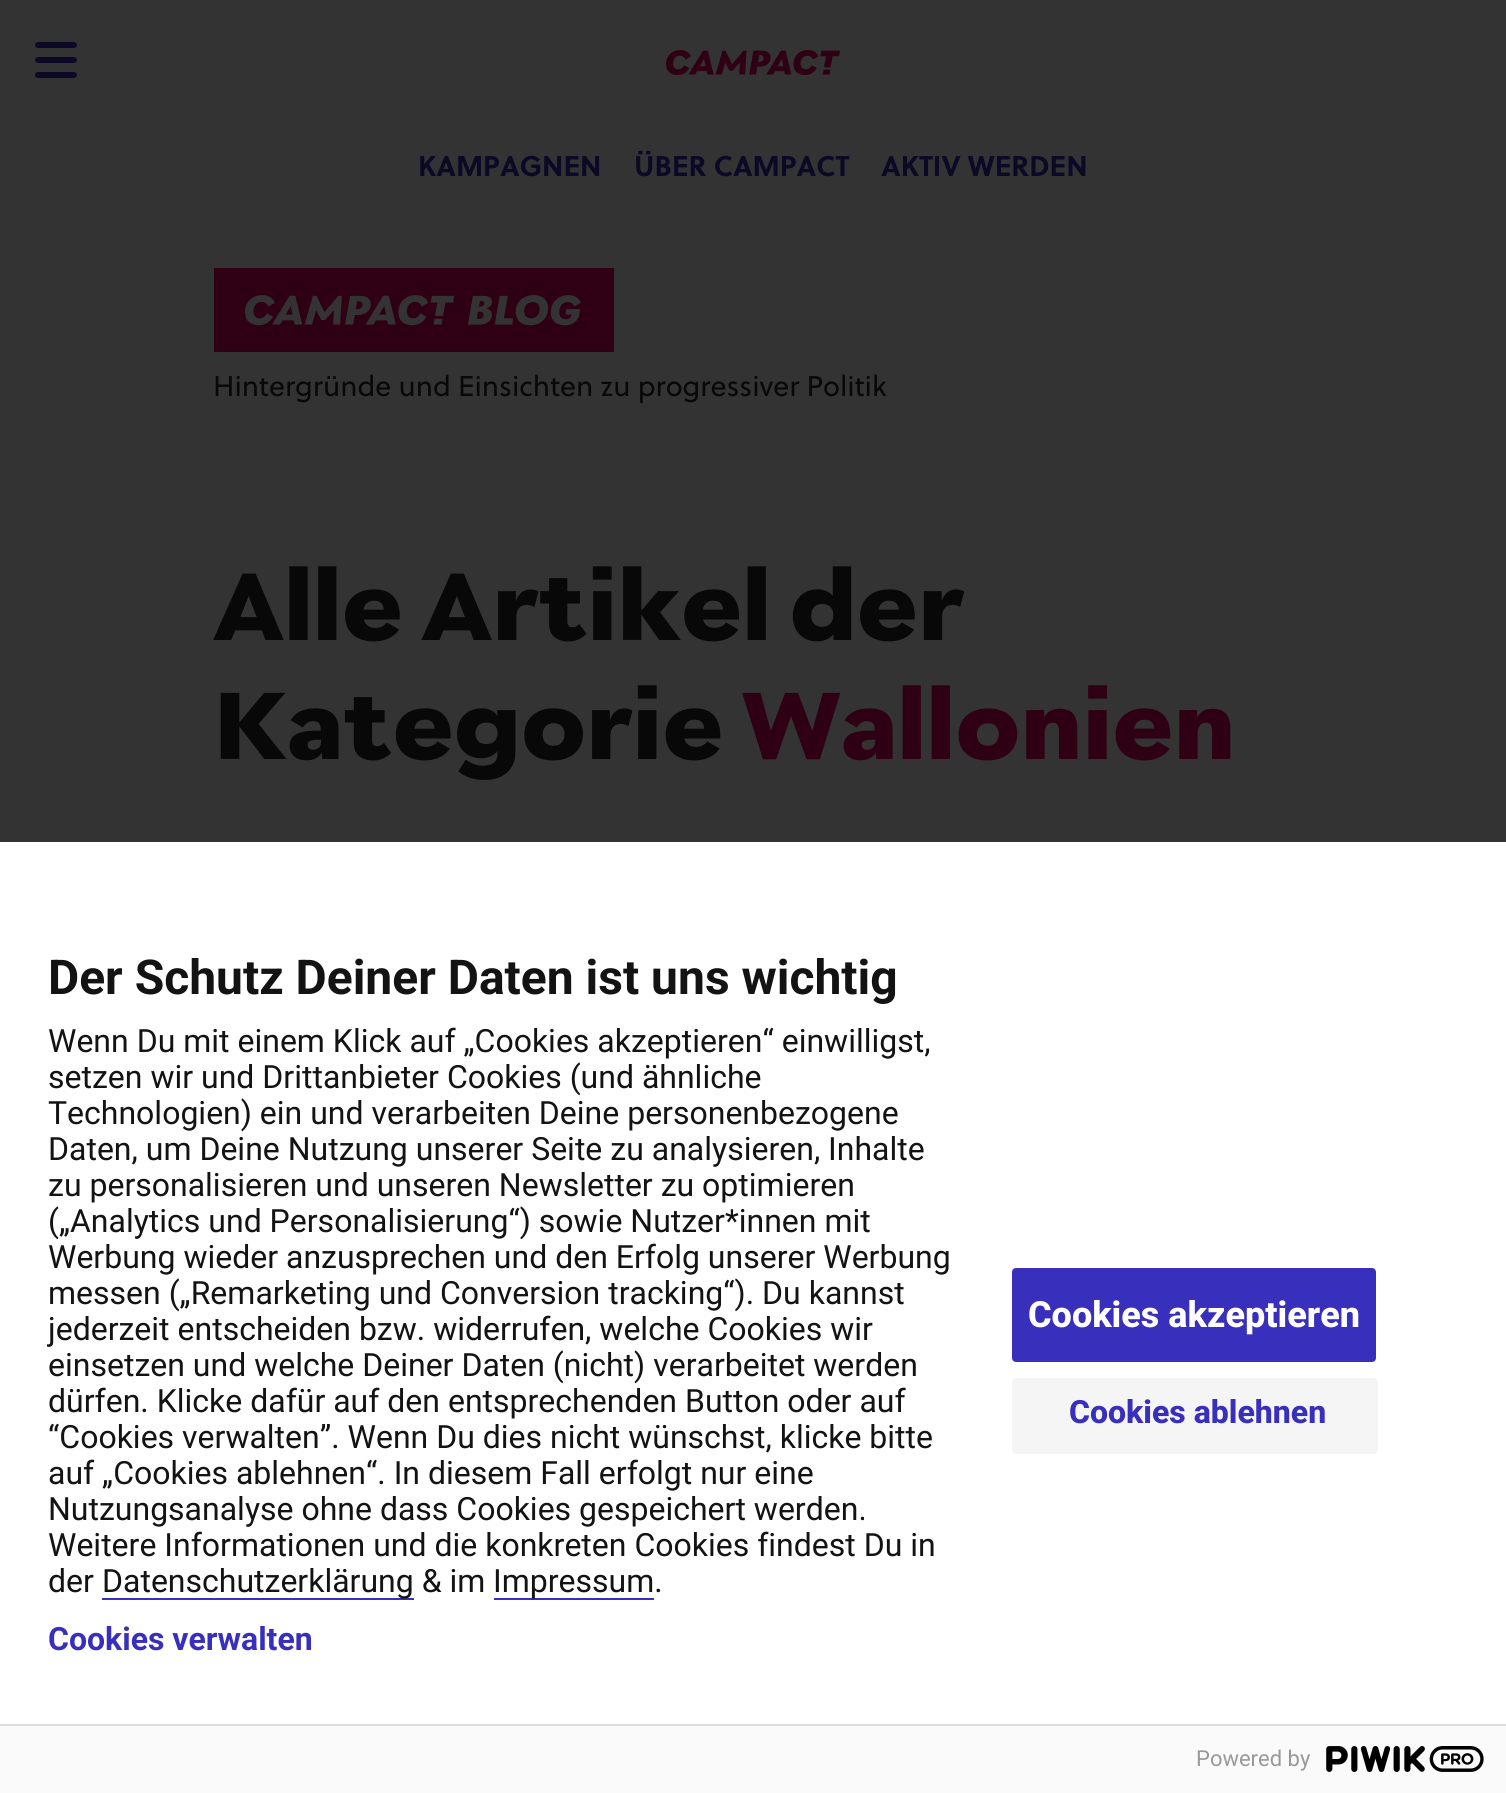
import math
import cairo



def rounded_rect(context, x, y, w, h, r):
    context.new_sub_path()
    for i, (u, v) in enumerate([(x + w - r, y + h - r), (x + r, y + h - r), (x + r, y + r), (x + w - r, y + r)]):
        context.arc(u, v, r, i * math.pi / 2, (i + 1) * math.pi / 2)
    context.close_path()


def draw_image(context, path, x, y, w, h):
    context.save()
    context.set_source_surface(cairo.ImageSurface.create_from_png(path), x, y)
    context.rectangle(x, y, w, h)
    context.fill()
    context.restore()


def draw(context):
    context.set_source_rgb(51 / 255, 51 / 255, 51 / 255)
    context.paint()
    draw_image(context, "images/1.png", 35, 42, 42, 36)
    draw_image(context, "images/2.png", 666, 50, 174, 25)
    draw_image(context, "images/3.png", 214, 268, 400, 84)
    context.set_source_rgb(1, 1, 1)
    context.rectangle(0, 842, 1506, 882)
    context.fill()
    context.set_source_rgb(57 / 255, 47 / 255, 189 / 255)
    context.rectangle(102, 1598, 312, 2)
    context.fill()
    context.rectangle(494, 1598, 160, 2)
    context.fill()
    rounded_rect(context, 1013, 1269, 362, 92, 3)
    context.fill_preserve()
    context.stroke()
    context.set_source_rgb(245 / 255, 245 / 255, 245 / 255)
    rounded_rect(context, 1012, 1378, 366, 76, 4)
    context.fill()
    context.set_source_rgb(250 / 255, 250 / 255, 250 / 255)
    context.rectangle(0, 1726, 1506, 67)
    context.fill()
    context.set_source_rgb(221 / 255, 221 / 255, 221 / 255)
    context.rectangle(0, 1724, 1506, 2)
    context.fill()
    draw_image(context, "images/4.png", 1326, 1746, 158, 26)
    context.select_font_face("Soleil", cairo.FontSlant.NORMAL, cairo.FontWeight.BOLD)
    context.set_font_size(28.5)
    context.set_source_rgb(11 / 255, 9 / 255, 38 / 255)
    context.move_to(418, 176)
    context.show_text("KAMPAGNEN")
    context.move_to(634, 176)
    context.show_text("ÜBER CAMPACT")
    context.move_to(881, 176)
    context.show_text("AKTIV WERDEN")
    context.select_font_face("Soleil")
    context.set_source_rgb(8 / 255, 8 / 255, 8 / 255)
    context.move_to(213, 396)
    context.show_text("Hintergründe und Einsichten zu progressiver Politik")
    context.select_font_face("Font", cairo.FontSlant.NORMAL, cairo.FontWeight.BOLD)
    context.set_font_size(94.5)
    context.move_to(213, 640)
    context.show_text("Alle Artikel der")
    context.move_to(213, 759)
    context.show_text("Kategorie")
    context.set_source_rgb(47 / 255, 0, 19 / 255)
    context.move_to(742, 759)
    context.show_text("Wallonien")
    context.select_font_face("Roboto", cairo.FontSlant.NORMAL, cairo.FontWeight.BOLD)
    context.set_font_size(48)
    context.set_source_rgb(19 / 255, 19 / 255, 19 / 255)
    context.move_to(48, 994)
    context.show_text("Der Schutz Deiner Daten ist uns wichtig")
    context.select_font_face("Roboto")
    context.set_font_size(32)
    context.move_to(48, 1052)
    context.show_text("Wenn Du mit einem Klick auf „Cookies akzeptieren“ einwilligst,")
    context.move_to(48, 1088)
    context.show_text("setzen wir und Drittanbieter Cookies (und ähnliche")
    context.move_to(48, 1124)
    context.show_text("Technologien) ein und verarbeiten Deine personenbezogene")
    context.move_to(48, 1160)
    context.show_text("Daten, um Deine Nutzung unserer Seite zu analysieren, Inhalte")
    context.move_to(48, 1196)
    context.show_text("zu personalisieren und unseren Newsletter zu optimieren")
    context.move_to(48, 1232)
    context.show_text("(„Analytics und Personalisierung“) sowie Nutzer*innen mit")
    context.move_to(48, 1268)
    context.show_text("Werbung wieder anzusprechen und den Erfolg unserer Werbung")
    context.move_to(48, 1304)
    context.show_text("messen („Remarketing und Conversion tracking“). Du kannst")
    context.move_to(48, 1340)
    context.show_text("jederzeit entscheiden bzw. widerrufen, welche Cookies wir")
    context.move_to(48, 1376)
    context.show_text("einsetzen und welche Deiner Daten (nicht) verarbeitet werden")
    context.move_to(48, 1412)
    context.show_text("dürfen. Klicke dafür auf den entsprechenden Button oder auf")
    context.move_to(48, 1448)
    context.show_text("“Cookies verwalten”. Wenn Du dies nicht wünschst, klicke bitte")
    context.move_to(48, 1484)
    context.show_text("auf „Cookies ablehnen“. In diesem Fall erfolgt nur eine")
    context.move_to(48, 1520)
    context.show_text("Nutzungsanalyse ohne dass Cookies gespeichert werden.")
    context.move_to(48, 1556)
    context.show_text("Weitere Informationen und die konkreten Cookies findest Du in")
    context.move_to(48, 1592)
    context.show_text("der")
    context.move_to(102, 1592)
    context.show_text("Datenschutzerklärung & im")
    context.move_to(493, 1592)
    context.show_text("Impressum.")
    context.select_font_face("Roboto ExtraBold")
    context.set_font_size(36)
    context.set_source_rgb(1, 1, 1)
    context.move_to(1028, 1327)
    context.show_text("Cookies akzeptieren")
    context.set_font_size(32)
    context.set_source_rgb(57 / 255, 47 / 255, 189 / 255)
    context.move_to(1069, 1423)
    context.show_text("Cookies ablehnen")
    context.select_font_face("Roboto", cairo.FontSlant.NORMAL, cairo.FontWeight.BOLD)
    context.move_to(48, 1650)
    context.show_text("Cookies verwalten")
    context.select_font_face("Roboto")
    context.set_font_size(22)
    context.set_source_rgb(153 / 255, 153 / 255, 153 / 255)
    context.move_to(1196, 1766)
    context.show_text("Powered by")


surface = cairo.ImageSurface(cairo.Format.RGB24, 1506, 1793)
context = cairo.Context(surface)
options = cairo.FontOptions()
options.set_hint_metrics(cairo.HintMetrics.OFF)
options.set_hint_style(cairo.HintStyle.NONE)
context.set_font_options(options)
context.set_miter_limit(4)
draw(context)
surface.write_to_png("out.png")
